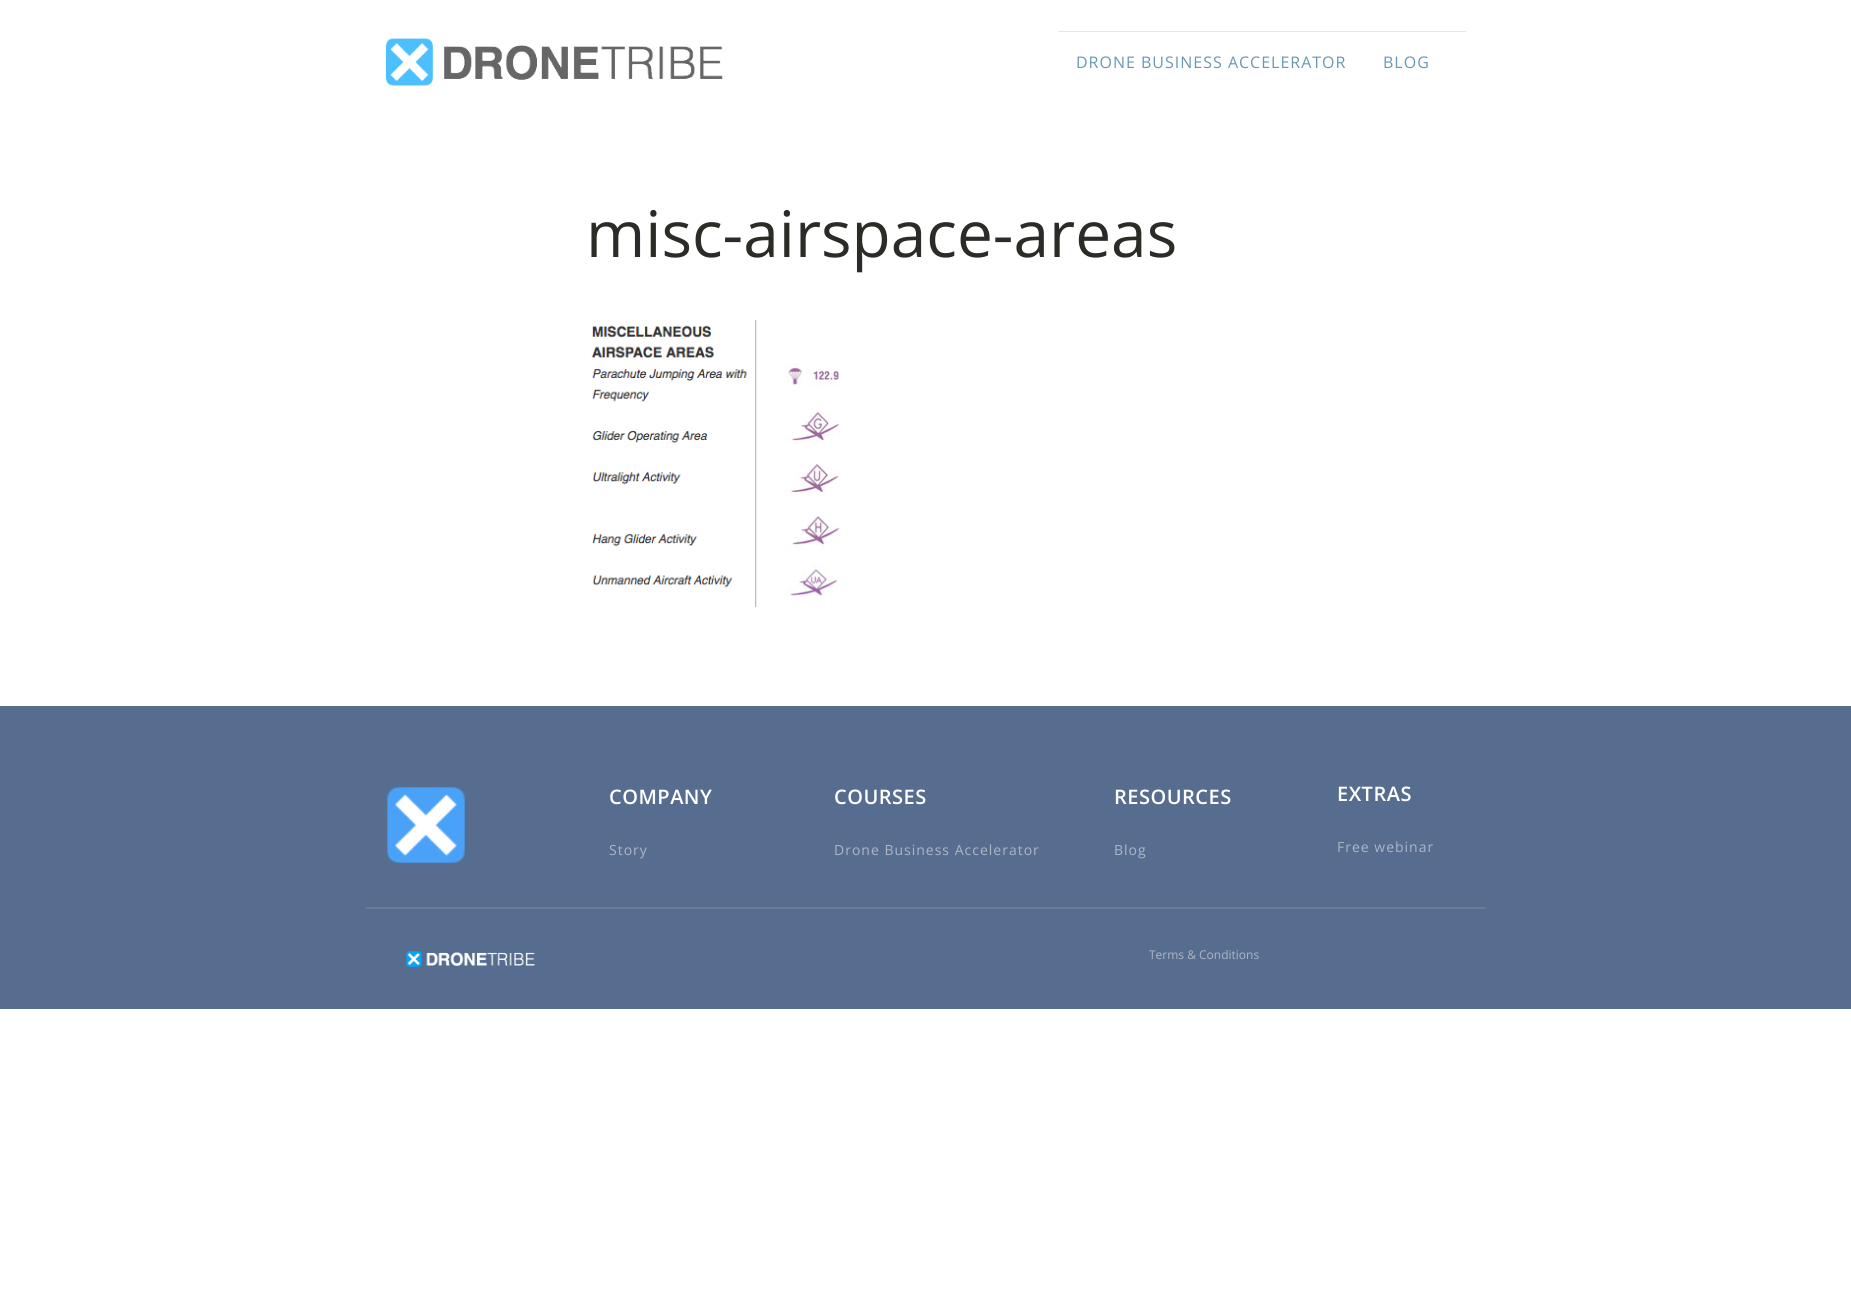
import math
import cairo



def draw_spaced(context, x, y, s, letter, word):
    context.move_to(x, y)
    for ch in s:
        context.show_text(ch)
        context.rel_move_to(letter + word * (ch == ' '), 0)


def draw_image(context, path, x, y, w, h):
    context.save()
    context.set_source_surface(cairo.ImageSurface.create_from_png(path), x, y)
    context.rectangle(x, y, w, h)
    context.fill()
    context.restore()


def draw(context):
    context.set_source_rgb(1, 1, 1)
    context.paint()
    draw_image(context, "images/1.png", 386, 38, 337, 48)
    context.set_source_rgb(230 / 255, 230 / 255, 230 / 255)
    context.rectangle(1058, 31, 408, 1)
    context.fill()
    draw_image(context, "images/2.png", 591, 320, 250, 287)
    context.set_source_rgb(86 / 255, 109 / 255, 143 / 255)
    context.rectangle(0, 706, 1851, 303)
    context.fill()
    context.set_source_rgb(103 / 255, 124 / 255, 154 / 255)
    context.rectangle(366, 907, 1120, 2)
    context.fill()
    draw_image(context, "images/3.png", 387, 787, 78, 76)
    draw_image(context, "images/4.png", 406, 951, 129, 16)
    context.select_font_face("Open Sans")
    context.set_font_size(16)
    context.set_source_rgb(103 / 255, 153 / 255, 178 / 255)
    draw_spaced(context, 1076, 68, "DRONE BUSINESS ACCELERATOR", 1, 0)
    draw_spaced(context, 1383, 68, "BLOG", 1, 0)
    context.set_font_size(64)
    context.set_source_rgb(43 / 255, 44 / 255, 40 / 255)
    context.move_to(586, 257)
    context.show_text("misc-airspace-areas")
    context.select_font_face("Open Sans SemiBold")
    context.set_font_size(20)
    context.set_source_rgb(1, 1, 1)
    draw_spaced(context, 609, 804, "COMPANY", 0.5, 0)
    context.select_font_face("Open Sans")
    context.set_font_size(14)
    context.set_source_rgb(171 / 255, 182 / 255, 199 / 255)
    draw_spaced(context, 609, 855, "Story", 1, 0)
    context.select_font_face("Open Sans SemiBold")
    context.set_font_size(20)
    context.set_source_rgb(1, 1, 1)
    draw_spaced(context, 834, 804, "COURSES", 0.5, 0)
    context.select_font_face("Open Sans")
    context.set_font_size(14)
    context.set_source_rgb(171 / 255, 182 / 255, 199 / 255)
    draw_spaced(context, 834, 855, "Drone Business Accelerator", 1, 0)
    context.select_font_face("Open Sans SemiBold")
    context.set_font_size(20)
    context.set_source_rgb(1, 1, 1)
    draw_spaced(context, 1114, 804, "RESOURCES", 0.5, 0)
    context.select_font_face("Open Sans")
    context.set_font_size(14)
    context.set_source_rgb(171 / 255, 182 / 255, 199 / 255)
    draw_spaced(context, 1114, 855, "Blog", 1, 0)
    context.select_font_face("Open Sans SemiBold")
    context.set_font_size(20)
    context.set_source_rgb(1, 1, 1)
    draw_spaced(context, 1337, 801, "EXTRAS", 0.5, 0)
    context.select_font_face("Open Sans")
    context.set_font_size(14)
    context.set_source_rgb(171 / 255, 182 / 255, 199 / 255)
    draw_spaced(context, 1337, 852, "Free webinar", 1, 0)
    context.set_font_size(12)
    context.move_to(1149, 959)
    context.show_text("Terms & Conditions")


surface = cairo.ImageSurface(cairo.Format.RGB24, 1851, 1290)
context = cairo.Context(surface)
options = cairo.FontOptions()
options.set_hint_metrics(cairo.HintMetrics.OFF)
options.set_hint_style(cairo.HintStyle.NONE)
context.set_font_options(options)
context.set_miter_limit(4)
draw(context)
surface.write_to_png("out.png")
